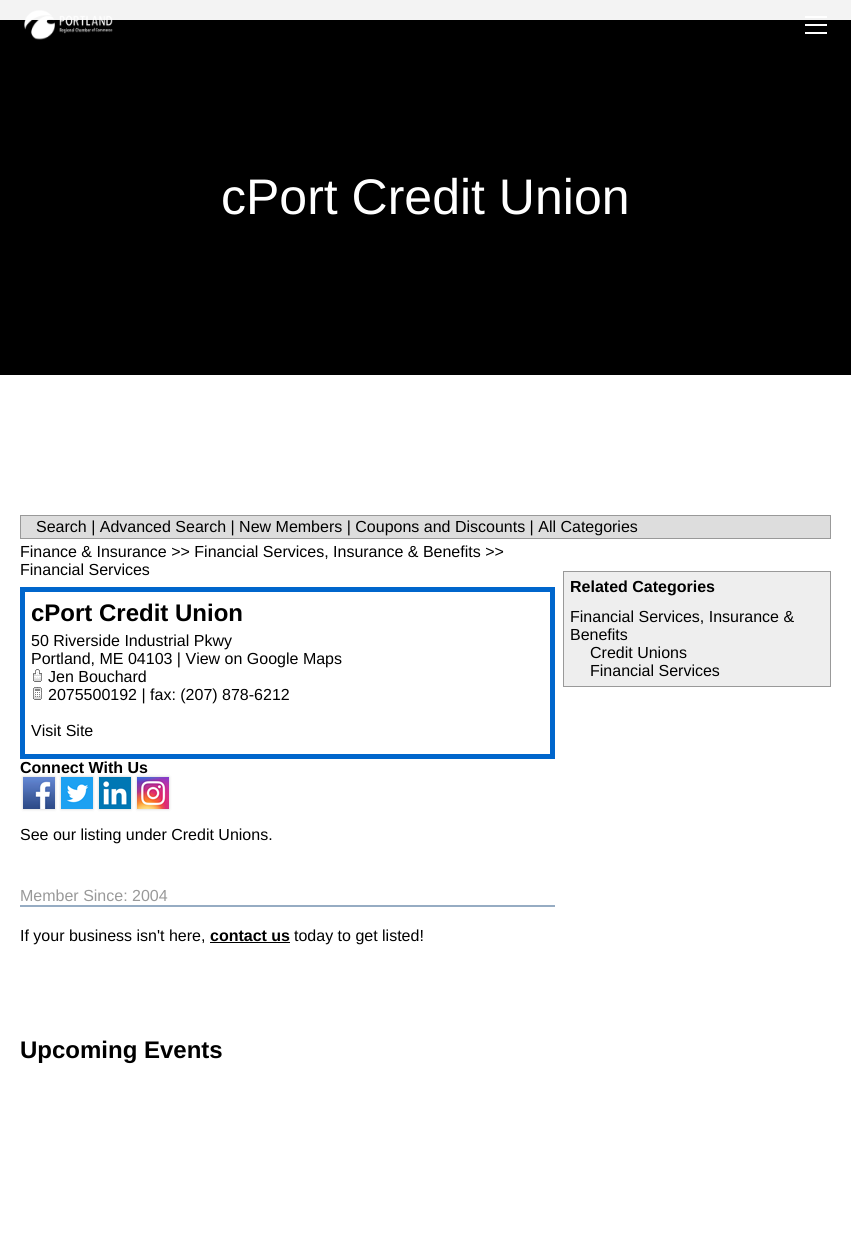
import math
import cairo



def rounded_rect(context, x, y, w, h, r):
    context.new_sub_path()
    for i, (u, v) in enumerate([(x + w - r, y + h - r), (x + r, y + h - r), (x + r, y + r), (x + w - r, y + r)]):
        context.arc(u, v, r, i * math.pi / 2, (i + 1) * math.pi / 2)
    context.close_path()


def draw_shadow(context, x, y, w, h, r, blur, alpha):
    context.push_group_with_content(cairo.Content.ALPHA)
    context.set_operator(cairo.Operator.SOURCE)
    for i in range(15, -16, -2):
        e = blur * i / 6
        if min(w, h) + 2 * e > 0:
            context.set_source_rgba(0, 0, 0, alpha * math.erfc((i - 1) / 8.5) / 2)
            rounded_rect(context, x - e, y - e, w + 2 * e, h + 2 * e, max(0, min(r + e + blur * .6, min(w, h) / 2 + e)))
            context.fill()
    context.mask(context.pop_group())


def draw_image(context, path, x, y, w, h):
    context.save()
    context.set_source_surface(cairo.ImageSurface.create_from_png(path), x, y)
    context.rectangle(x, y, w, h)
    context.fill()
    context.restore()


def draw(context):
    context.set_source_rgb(243 / 255, 243 / 255, 243 / 255)
    context.paint()
    context.set_source_rgb(0, 0, 0)
    context.rectangle(0, 20, 851, 355)
    context.fill()
    draw_image(context, "images/1.png", 24, 10, 89, 30)
    context.set_source_rgb(1, 1, 1)
    context.rectangle(805, 24, 22, 2)
    context.fill()
    context.rectangle(805, 16, 22, 2)
    context.fill()
    context.rectangle(805, 32, 22, 2)
    context.fill()
    context.rectangle(0, 375, 851, 866)
    context.fill()
    context.set_source_rgb(221 / 255, 221 / 255, 221 / 255)
    context.rectangle(20.5, 515.5, 810, 23)
    context.fill_preserve()
    context.set_source_rgb(153 / 255, 153 / 255, 153 / 255)
    context.set_line_width(1)
    context.stroke()
    context.set_source_rgb(0, 102 / 255, 204 / 255)
    context.rectangle(20, 587, 535, 172)
    context.fill()
    context.set_source_rgb(1, 1, 1)
    context.rectangle(25, 592, 525, 162)
    context.fill()
    draw_image(context, "images/2.png", 33, 669, 9, 13)
    draw_image(context, "images/3.png", 33, 687, 9, 13)
    context.set_source_rgb(0, 0, 0)
    draw_shadow(context, 23, 777, 32, 32, 0, 1.5, 0.2)
    draw_shadow(context, 61, 777, 32, 32, 0, 1.5, 0.2)
    draw_shadow(context, 99, 777, 32, 32, 0, 1.5, 0.2)
    draw_shadow(context, 137, 777, 32, 32, 0, 1.5, 0.2)
    draw_image(context, "images/4.png", 23, 777, 32, 32)
    draw_image(context, "images/5.png", 61, 777, 32, 32)
    draw_image(context, "images/6.png", 99, 777, 32, 32)
    draw_image(context, "images/7.png", 137, 777, 32, 32)
    context.set_source_rgb(150 / 255, 172 / 255, 195 / 255)
    context.rectangle(20, 905, 535, 2)
    context.fill()
    context.set_source_rgb(0, 0, 0)
    context.rectangle(210, 942, 80, 1)
    context.fill()
    context.set_source_rgb(238 / 255, 238 / 255, 238 / 255)
    context.rectangle(563.5, 571.5, 267, 115)
    context.fill_preserve()
    context.set_source_rgb(153 / 255, 153 / 255, 153 / 255)
    context.stroke()
    context.select_font_face("Liberation Sans")
    context.set_font_size(50)
    context.set_source_rgb(1, 1, 1)
    context.move_to(221, 214)
    context.show_text("cPort Credit Union")
    context.set_font_size(16)
    context.set_source_rgb(0, 0, 0)
    context.move_to(36, 532)
    context.show_text("Search | Advanced Search | New Members | Coupons and Discounts | All Categories")
    context.move_to(20, 557)
    context.show_text("Finance & Insurance >> Financial Services, Insurance & Benefits >>")
    context.move_to(20, 575)
    context.show_text("Financial Services")
    context.select_font_face("Liberation Sans", cairo.FontSlant.NORMAL, cairo.FontWeight.BOLD)
    context.set_font_size(24)
    context.move_to(31, 621)
    context.show_text("cPort Credit Union")
    context.select_font_face("Liberation Sans")
    context.set_font_size(16)
    context.move_to(31, 646)
    context.show_text("50 Riverside Industrial Pkwy")
    context.move_to(31, 664)
    context.show_text("Portland, ME 04103 | View on Google Maps")
    context.move_to(48, 682)
    context.show_text("Jen Bouchard")
    context.move_to(48, 700)
    context.show_text("2075500192 | fax: (207) 878-6212")
    context.move_to(31, 736)
    context.show_text("Visit Site")
    context.select_font_face("Liberation Sans", cairo.FontSlant.NORMAL, cairo.FontWeight.BOLD)
    context.move_to(20, 773)
    context.show_text("Connect With Us")
    context.select_font_face("Liberation Sans")
    context.move_to(20, 840)
    context.show_text("See our listing under Credit Unions.")
    context.set_source_rgb(153 / 255, 153 / 255, 153 / 255)
    context.move_to(20, 901)
    context.show_text("Member Since: 2004")
    context.set_source_rgb(0, 0, 0)
    context.move_to(20, 941)
    context.show_text("If your business isn't here,")
    context.select_font_face("Liberation Sans", cairo.FontSlant.NORMAL, cairo.FontWeight.BOLD)
    context.move_to(210, 941)
    context.show_text("contact us")
    context.select_font_face("Liberation Sans")
    context.move_to(294, 941)
    context.show_text("today to get listed!")
    context.select_font_face("Liberation Sans", cairo.FontSlant.NORMAL, cairo.FontWeight.BOLD)
    context.move_to(570, 592)
    context.show_text("Related Categories")
    context.select_font_face("Liberation Sans")
    context.move_to(570, 622)
    context.show_text("Financial Services, Insurance &")
    context.move_to(570, 640)
    context.show_text("Benefits")
    context.move_to(590, 658)
    context.show_text("Credit Unions")
    context.move_to(590, 676)
    context.show_text("Financial Services")
    context.select_font_face("Liberation Sans", cairo.FontSlant.NORMAL, cairo.FontWeight.BOLD)
    context.set_font_size(24)
    context.move_to(20, 1058)
    context.show_text("Upcoming Events")


surface = cairo.ImageSurface(cairo.Format.RGB24, 851, 1241)
context = cairo.Context(surface)
options = cairo.FontOptions()
options.set_hint_metrics(cairo.HintMetrics.OFF)
options.set_hint_style(cairo.HintStyle.NONE)
context.set_font_options(options)
context.set_miter_limit(4)
draw(context)
surface.write_to_png("out.png")
